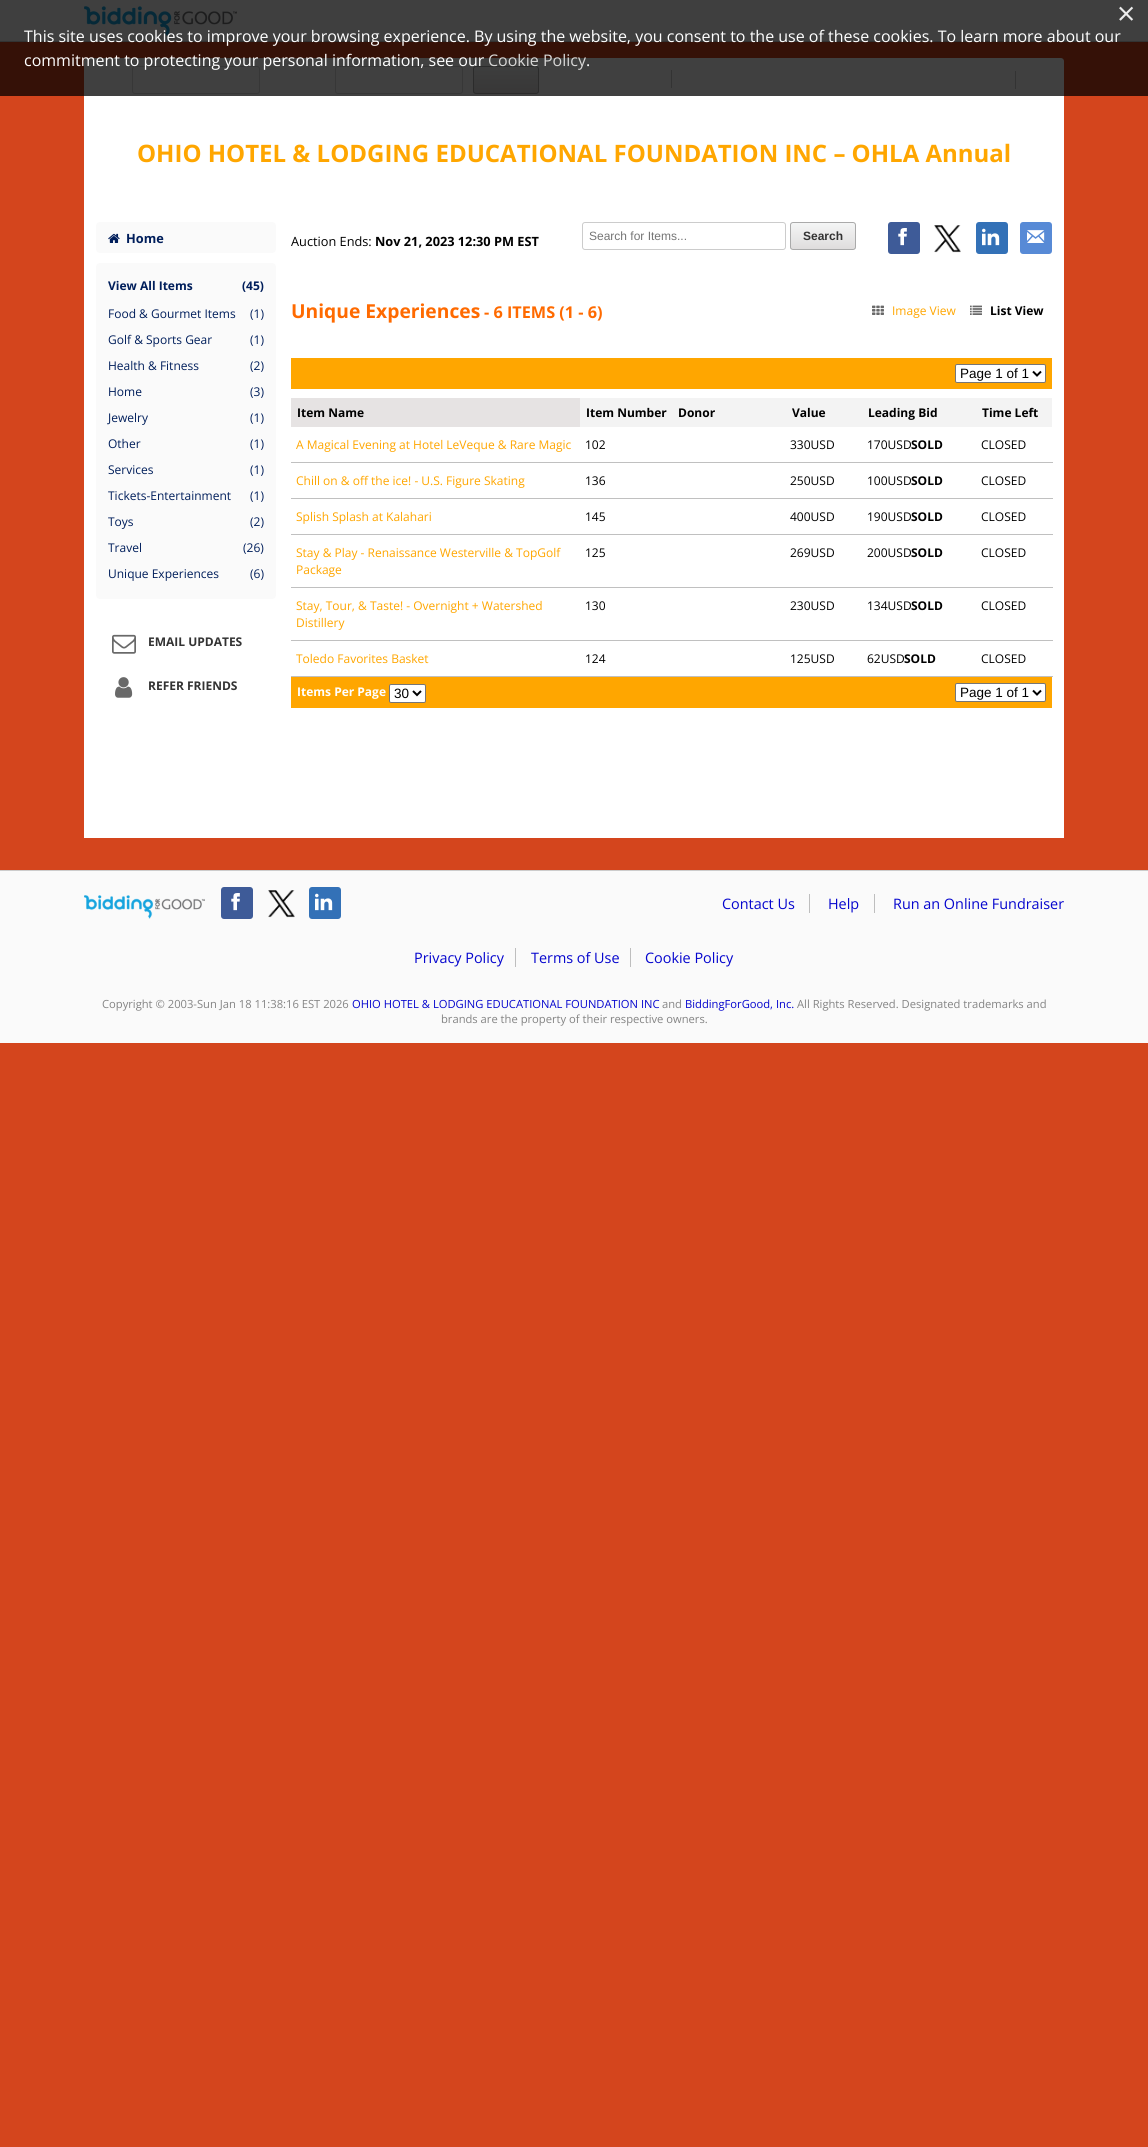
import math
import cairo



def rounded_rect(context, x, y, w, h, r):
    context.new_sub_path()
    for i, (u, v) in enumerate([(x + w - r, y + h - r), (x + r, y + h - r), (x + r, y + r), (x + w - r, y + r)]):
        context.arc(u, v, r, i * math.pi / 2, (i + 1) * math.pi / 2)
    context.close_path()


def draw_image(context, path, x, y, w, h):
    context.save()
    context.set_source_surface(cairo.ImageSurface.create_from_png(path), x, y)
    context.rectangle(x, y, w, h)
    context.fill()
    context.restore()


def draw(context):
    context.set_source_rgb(212 / 255, 69 / 255, 29 / 255)
    context.paint()
    context.set_source_rgb(250 / 255, 250 / 255, 250 / 255)
    context.rectangle(0, 0, 1148, 41)
    context.fill()
    context.set_source_rgb(204 / 255, 204 / 255, 204 / 255)
    context.rectangle(0, 41, 1148, 1)
    context.fill()
    draw_image(context, "images/1.png", 84, 6, 153, 30)
    context.set_source_rgb(1, 1, 1)
    context.new_path()
    context.move_to(87, 58)
    context.line_to(1061, 58)
    context.curve_to(1062.5, 58, 1064, 59.5, 1064, 61)
    context.line_to(1064, 102)
    context.line_to(84, 102)
    context.line_to(84, 61)
    context.curve_to(84, 59.5, 85.5, 58, 87, 58)
    context.close_path()
    context.fill()
    rounded_rect(context, 132.5, 66.5, 127, 27, 2.5)
    context.set_source_rgb(221 / 255, 221 / 255, 221 / 255)
    context.set_line_width(1)
    context.stroke()
    rounded_rect(context, 335.5, 66.5, 127, 27, 2.5)
    context.stroke()
    context.save()
    rounded_rect(context, 473, 66, 66, 28, 3)
    context.clip()
    gradient = cairo.LinearGradient(506, 67, 506, 93)
    gradient.add_color_stop_rgba(0, 244 / 255, 245 / 255, 245 / 255, 1)
    gradient.add_color_stop_rgba(1, 223 / 255, 221 / 255, 221 / 255, 1)
    context.set_source(gradient)
    context.rectangle(473, 67, 66, 26)
    context.fill()
    context.restore()
    rounded_rect(context, 473.5, 66.5, 65, 27, 2.5)
    context.set_source_rgb(170 / 255, 170 / 255, 170 / 255)
    context.stroke()
    context.set_source_rgb(204 / 255, 204 / 255, 204 / 255)
    context.rectangle(671, 70, 1, 18)
    context.fill()
    context.rectangle(1015, 71, 1, 18)
    context.fill()
    context.set_source_rgba(0, 0, 0, 0.75)
    context.rectangle(0, 0, 1148, 96)
    context.fill()
    context.set_source_rgb(1, 1, 1)
    context.rectangle(84, 102, 980, 736)
    context.fill()
    context.set_source_rgb(250 / 255, 250 / 255, 250 / 255)
    rounded_rect(context, 96, 222, 180, 31, 4)
    context.fill()
    draw_image(context, "images/2.png", 108, 233, 12, 10)
    rounded_rect(context, 96, 263, 180, 336, 4)
    context.fill()
    draw_image(context, "images/3.png", 112, 634, 24, 20)
    draw_image(context, "images/4.png", 115, 677, 18, 21)
    rounded_rect(context, 582.5, 222.5, 203, 27, 2.5)
    context.set_source_rgb(204 / 255, 204 / 255, 204 / 255)
    context.stroke()
    context.save()
    rounded_rect(context, 790, 222, 66, 28, 3)
    context.clip()
    gradient = cairo.LinearGradient(823, 223, 823, 249)
    gradient.add_color_stop_rgba(0, 244 / 255, 245 / 255, 245 / 255, 1)
    gradient.add_color_stop_rgba(1, 223 / 255, 221 / 255, 221 / 255, 1)
    context.set_source(gradient)
    context.rectangle(790, 223, 66, 26)
    context.fill()
    context.restore()
    rounded_rect(context, 790.5, 222.5, 65, 27, 2.5)
    context.set_source_rgb(170 / 255, 170 / 255, 170 / 255)
    context.stroke()
    context.set_source_rgb(62 / 255, 91 / 255, 152 / 255)
    rounded_rect(context, 888, 222, 32, 32, 3)
    context.fill()
    draw_image(context, "images/5.png", 898, 228, 9, 18)
    draw_image(context, "images/6.png", 934, 225, 27, 28)
    context.set_source_rgb(51 / 255, 113 / 255, 183 / 255)
    rounded_rect(context, 976, 222, 32, 32, 3)
    context.fill()
    draw_image(context, "images/7.png", 982, 228, 18, 18)
    context.set_source_rgb(87 / 255, 138 / 255, 214 / 255)
    rounded_rect(context, 1020, 222, 32, 32, 3)
    context.fill()
    draw_image(context, "images/8.png", 1027, 230, 18, 13)
    draw_image(context, "images/9.png", 872, 305, 12, 10)
    draw_image(context, "images/10.png", 970, 305, 12, 10)
    context.set_source_rgb(1, 166 / 255, 0)
    context.rectangle(291, 358, 761, 31)
    context.fill()
    context.set_source_rgb(1, 1, 1)
    rounded_rect(context, 955.5, 364.5, 90, 18, 1.5)
    context.fill_preserve()
    context.set_source_rgb(118 / 255, 118 / 255, 118 / 255)
    context.stroke()
    context.new_path()
    context.move_to(1033, 371.5)
    context.line_to(1037, 375.5)
    context.line_to(1041, 371.5)
    context.set_source_rgb(0, 0, 0)
    context.set_line_width(2)
    context.stroke()
    context.set_source_rgb(243 / 255, 243 / 255, 243 / 255)
    context.rectangle(580, 398, 472, 29)
    context.fill()
    context.set_source_rgb(230 / 255, 227 / 255, 227 / 255)
    context.rectangle(291, 398, 289, 29)
    context.fill()
    context.set_source_rgb(192 / 255, 192 / 255, 192 / 255)
    context.rectangle(291, 462, 762, 1)
    context.fill()
    context.rectangle(291, 498, 762, 1)
    context.fill()
    context.rectangle(291, 534, 762, 1)
    context.fill()
    context.rectangle(291, 587, 762, 1)
    context.fill()
    context.rectangle(291, 640, 762, 1)
    context.fill()
    context.rectangle(291, 676, 762, 1)
    context.fill()
    context.set_source_rgb(1, 166 / 255, 0)
    context.rectangle(291, 677, 761, 31)
    context.fill()
    context.set_source_rgb(1, 1, 1)
    rounded_rect(context, 389.5, 684.5, 36, 18, 1.5)
    context.fill_preserve()
    context.set_source_rgb(118 / 255, 118 / 255, 118 / 255)
    context.set_line_width(1)
    context.stroke()
    context.new_path()
    context.move_to(413, 691)
    context.line_to(417, 695)
    context.line_to(421, 691)
    context.set_source_rgb(0, 0, 0)
    context.set_line_width(2)
    context.stroke()
    context.set_source_rgb(1, 1, 1)
    rounded_rect(context, 955.5, 683.5, 90, 18, 1.5)
    context.fill_preserve()
    context.set_source_rgb(118 / 255, 118 / 255, 118 / 255)
    context.set_line_width(1)
    context.stroke()
    context.new_path()
    context.move_to(1033, 690.5)
    context.line_to(1037, 694.5)
    context.line_to(1041, 690.5)
    context.set_source_rgb(0, 0, 0)
    context.set_line_width(2)
    context.stroke()
    context.set_source_rgb(250 / 255, 250 / 255, 250 / 255)
    context.rectangle(0, 871, 1148, 172)
    context.fill()
    context.set_source_rgb(204 / 255, 204 / 255, 204 / 255)
    context.rectangle(0, 870, 1148, 1)
    context.fill()
    draw_image(context, "images/11.png", 84, 895, 121, 24)
    context.set_source_rgb(62 / 255, 91 / 255, 152 / 255)
    rounded_rect(context, 221, 887, 32, 32, 3)
    context.fill()
    draw_image(context, "images/5.png", 231, 893, 9, 18)
    draw_image(context, "images/12.png", 268, 890, 27, 28)
    context.set_source_rgb(51 / 255, 113 / 255, 183 / 255)
    rounded_rect(context, 309, 887, 32, 32, 3)
    context.fill()
    draw_image(context, "images/7.png", 315, 893, 18, 18)
    context.set_source_rgb(190 / 255, 190 / 255, 190 / 255)
    context.rectangle(809, 894, 1, 19)
    context.fill()
    context.rectangle(874, 894, 1, 19)
    context.fill()
    context.rectangle(515, 948, 1, 19)
    context.fill()
    context.rectangle(630, 948, 1, 19)
    context.fill()
    context.select_font_face("Open Sans")
    context.set_font_size(32)
    context.set_source_rgb(236 / 255, 236 / 255, 236 / 255)
    context.move_to(1117, 25)
    context.show_text("×")
    context.set_font_size(16)
    context.set_source_rgb(1, 1, 1)
    context.move_to(24, 42)
    context.show_text("This site uses cookies to improve your browsing experience. By using the website, you consent to the use of these cookies. To learn more about our")
    context.move_to(24, 66)
    context.show_text("commitment to protecting your personal information, see our")
    context.set_source_rgb(216 / 255, 215 / 255, 214 / 255)
    context.move_to(488, 66)
    context.show_text("Cookie Policy")
    context.set_source_rgb(1, 1, 1)
    context.move_to(586, 66)
    context.show_text(".")
    context.select_font_face("Open Sans", cairo.FontSlant.NORMAL, cairo.FontWeight.BOLD)
    context.set_font_size(24)
    context.set_source_rgb(1, 166 / 255, 0)
    context.move_to(137, 162)
    context.show_text("OHIO HOTEL & LODGING EDUCATIONAL FOUNDATION INC – OHLA Annual")
    context.set_font_size(12.75)
    context.set_source_rgb(0, 30 / 255, 91 / 255)
    context.move_to(126, 243)
    context.show_text("Home")
    context.set_font_size(12)
    context.move_to(108, 290)
    context.show_text("View All Items")
    context.move_to(242, 290)
    context.show_text("(45)")
    context.select_font_face("Open Sans")
    context.move_to(108, 318)
    context.show_text("Food & Gourmet Items")
    context.move_to(250, 318)
    context.show_text("(1)")
    context.move_to(108, 344)
    context.show_text("Golf & Sports Gear")
    context.move_to(250, 344)
    context.show_text("(1)")
    context.move_to(108, 370)
    context.show_text("Health & Fitness")
    context.move_to(250, 370)
    context.show_text("(2)")
    context.move_to(108, 396)
    context.show_text("Home")
    context.move_to(250, 396)
    context.show_text("(3)")
    context.move_to(108, 422)
    context.show_text("Jewelry")
    context.move_to(250, 422)
    context.show_text("(1)")
    context.move_to(108, 448)
    context.show_text("Other")
    context.move_to(250, 448)
    context.show_text("(1)")
    context.move_to(108, 474)
    context.show_text("Services")
    context.move_to(250, 474)
    context.show_text("(1)")
    context.move_to(108, 500)
    context.show_text("Tickets-Entertainment")
    context.move_to(250, 500)
    context.show_text("(1)")
    context.move_to(108, 526)
    context.show_text("Toys")
    context.move_to(250, 526)
    context.show_text("(2)")
    context.move_to(108, 552)
    context.show_text("Travel")
    context.move_to(243, 552)
    context.show_text("(26)")
    context.move_to(108, 578)
    context.show_text("Unique Experiences")
    context.move_to(250, 578)
    context.show_text("(6)")
    context.select_font_face("Open Sans", cairo.FontSlant.NORMAL, cairo.FontWeight.BOLD)
    context.set_source_rgb(51 / 255, 51 / 255, 51 / 255)
    context.move_to(148, 646)
    context.show_text("EMAIL UPDATES")
    context.move_to(148, 690)
    context.show_text("REFER FRIENDS")
    context.select_font_face("Open Sans")
    context.set_font_size(12.75)
    context.set_source_rgb(0, 0, 0)
    context.move_to(291, 246)
    context.show_text("Auction Ends:")
    context.select_font_face("Open Sans", cairo.FontSlant.NORMAL, cairo.FontWeight.BOLD)
    context.move_to(375, 246)
    context.show_text("Nov 21, 2023 12:30 PM EST")
    context.select_font_face("Liberation Sans")
    context.set_font_size(12)
    context.set_source_rgb(117 / 255, 117 / 255, 117 / 255)
    context.move_to(589, 240)
    context.show_text("Search for Items...")
    context.select_font_face("Liberation Sans", cairo.FontSlant.NORMAL, cairo.FontWeight.BOLD)
    context.set_source_rgb(51 / 255, 51 / 255, 51 / 255)
    context.move_to(803, 240)
    context.show_text("Search")
    context.select_font_face("Open Sans", cairo.FontSlant.NORMAL, cairo.FontWeight.BOLD)
    context.set_font_size(19.25)
    context.set_source_rgb(1, 106 / 255, 0)
    context.move_to(291, 318)
    context.show_text("Unique Experiences")
    context.set_font_size(16.25)
    context.move_to(484, 318)
    context.show_text("- 6 ITEMS (1 - 6)")
    context.select_font_face("Open Sans")
    context.set_font_size(12)
    context.set_source_rgb(1, 166 / 255, 0)
    context.move_to(892, 315)
    context.show_text("Image View")
    context.select_font_face("Open Sans", cairo.FontSlant.NORMAL, cairo.FontWeight.BOLD)
    context.set_source_rgb(0, 0, 0)
    context.move_to(990, 315)
    context.show_text("List View")
    context.select_font_face("Liberation Sans")
    context.set_font_size(13.5)
    context.move_to(960, 378)
    context.show_text("Page 1 of 1")
    context.select_font_face("Open Sans", cairo.FontSlant.NORMAL, cairo.FontWeight.BOLD)
    context.set_font_size(12)
    context.move_to(297, 417)
    context.show_text("Item Name")
    context.move_to(586, 417)
    context.show_text("Item Number")
    context.move_to(678, 417)
    context.show_text("Donor")
    context.move_to(792, 417)
    context.show_text("Value")
    context.move_to(868, 417)
    context.show_text("Leading Bid")
    context.move_to(982, 417)
    context.show_text("Time Left")
    context.select_font_face("Open Sans")
    context.set_source_rgb(1, 166 / 255, 0)
    context.move_to(296, 449)
    context.show_text("A Magical Evening at Hotel LeVeque & Rare Magic")
    context.set_source_rgb(0, 0, 0)
    context.move_to(585, 449)
    context.show_text("102")
    context.move_to(790, 449)
    context.show_text("330USD")
    context.move_to(867, 449)
    context.show_text("170USD")
    context.select_font_face("Open Sans", cairo.FontSlant.NORMAL, cairo.FontWeight.BOLD)
    context.move_to(911, 449)
    context.show_text("SOLD")
    context.select_font_face("Open Sans")
    context.move_to(981, 449)
    context.show_text("CLOSED")
    context.set_source_rgb(1, 166 / 255, 0)
    context.move_to(296, 485)
    context.show_text("Chill on & off the ice! - U.S. Figure Skating")
    context.set_source_rgb(0, 0, 0)
    context.move_to(585, 485)
    context.show_text("136")
    context.move_to(790, 485)
    context.show_text("250USD")
    context.move_to(867, 485)
    context.show_text("100USD")
    context.select_font_face("Open Sans", cairo.FontSlant.NORMAL, cairo.FontWeight.BOLD)
    context.move_to(911, 485)
    context.show_text("SOLD")
    context.select_font_face("Open Sans")
    context.move_to(981, 485)
    context.show_text("CLOSED")
    context.set_source_rgb(1, 166 / 255, 0)
    context.move_to(296, 521)
    context.show_text("Splish Splash at Kalahari")
    context.set_source_rgb(0, 0, 0)
    context.move_to(585, 521)
    context.show_text("145")
    context.move_to(790, 521)
    context.show_text("400USD")
    context.move_to(867, 521)
    context.show_text("190USD")
    context.select_font_face("Open Sans", cairo.FontSlant.NORMAL, cairo.FontWeight.BOLD)
    context.move_to(911, 521)
    context.show_text("SOLD")
    context.select_font_face("Open Sans")
    context.move_to(981, 521)
    context.show_text("CLOSED")
    context.set_source_rgb(1, 166 / 255, 0)
    context.move_to(296, 557)
    context.show_text("Stay & Play - Renaissance Westerville & TopGolf")
    context.move_to(296, 574)
    context.show_text("Package")
    context.set_source_rgb(0, 0, 0)
    context.move_to(585, 557)
    context.show_text("125")
    context.move_to(790, 557)
    context.show_text("269USD")
    context.move_to(867, 557)
    context.show_text("200USD")
    context.select_font_face("Open Sans", cairo.FontSlant.NORMAL, cairo.FontWeight.BOLD)
    context.move_to(911, 557)
    context.show_text("SOLD")
    context.select_font_face("Open Sans")
    context.move_to(981, 557)
    context.show_text("CLOSED")
    context.set_source_rgb(1, 166 / 255, 0)
    context.move_to(296, 610)
    context.show_text("Stay, Tour, & Taste! - Overnight + Watershed")
    context.move_to(296, 627)
    context.show_text("Distillery")
    context.set_source_rgb(0, 0, 0)
    context.move_to(585, 610)
    context.show_text("130")
    context.move_to(790, 610)
    context.show_text("230USD")
    context.move_to(867, 610)
    context.show_text("134USD")
    context.select_font_face("Open Sans", cairo.FontSlant.NORMAL, cairo.FontWeight.BOLD)
    context.move_to(911, 610)
    context.show_text("SOLD")
    context.select_font_face("Open Sans")
    context.move_to(981, 610)
    context.show_text("CLOSED")
    context.set_source_rgb(1, 166 / 255, 0)
    context.move_to(296, 663)
    context.show_text("Toledo Favorites Basket")
    context.set_source_rgb(0, 0, 0)
    context.move_to(585, 663)
    context.show_text("124")
    context.move_to(790, 663)
    context.show_text("125USD")
    context.move_to(867, 663)
    context.show_text("62USD")
    context.select_font_face("Open Sans", cairo.FontSlant.NORMAL, cairo.FontWeight.BOLD)
    context.move_to(904, 663)
    context.show_text("SOLD")
    context.select_font_face("Open Sans")
    context.move_to(981, 663)
    context.show_text("CLOSED")
    context.select_font_face("Open Sans", cairo.FontSlant.NORMAL, cairo.FontWeight.BOLD)
    context.set_source_rgb(1, 1, 1)
    context.move_to(297, 696)
    context.show_text("Items Per Page")
    context.select_font_face("Liberation Sans")
    context.set_font_size(13.5)
    context.set_source_rgb(0, 0, 0)
    context.move_to(394, 698)
    context.show_text("30")
    context.move_to(960, 697)
    context.show_text("Page 1 of 1")
    context.select_font_face("Open Sans")
    context.set_font_size(14.4)
    context.set_source_rgb(5 / 255, 5 / 255, 206 / 255)
    context.move_to(722, 909)
    context.show_text("Contact Us")
    context.move_to(828, 909)
    context.show_text("Help")
    context.move_to(893, 909)
    context.show_text("Run an Online Fundraiser")
    context.move_to(414, 963)
    context.show_text("Privacy Policy")
    context.move_to(531, 963)
    context.show_text("Terms of Use")
    context.move_to(645, 963)
    context.show_text("Cookie Policy")
    context.set_font_size(11.2)
    context.set_source_rgb(132 / 255, 132 / 255, 132 / 255)
    context.move_to(102, 1008)
    context.show_text("Copyright © 2003-Sun Jan 18 11:38:16 EST 2026")
    context.set_source_rgb(5 / 255, 5 / 255, 206 / 255)
    context.move_to(352, 1008)
    context.show_text("OHIO HOTEL & LODGING EDUCATIONAL FOUNDATION INC")
    context.set_source_rgb(132 / 255, 132 / 255, 132 / 255)
    context.move_to(662, 1008)
    context.show_text("and")
    context.set_source_rgb(5 / 255, 5 / 255, 206 / 255)
    context.move_to(685, 1008)
    context.show_text("BiddingForGood, Inc.")
    context.set_source_rgb(132 / 255, 132 / 255, 132 / 255)
    context.move_to(797, 1008)
    context.show_text("All Rights Reserved. Designated trademarks and")
    context.move_to(441, 1023)
    context.show_text("brands are the property of their respective owners.")


surface = cairo.ImageSurface(cairo.Format.RGB24, 1148, 2147)
context = cairo.Context(surface)
options = cairo.FontOptions()
options.set_hint_metrics(cairo.HintMetrics.OFF)
options.set_hint_style(cairo.HintStyle.NONE)
context.set_font_options(options)
context.set_miter_limit(4)
draw(context)
surface.write_to_png("out.png")
